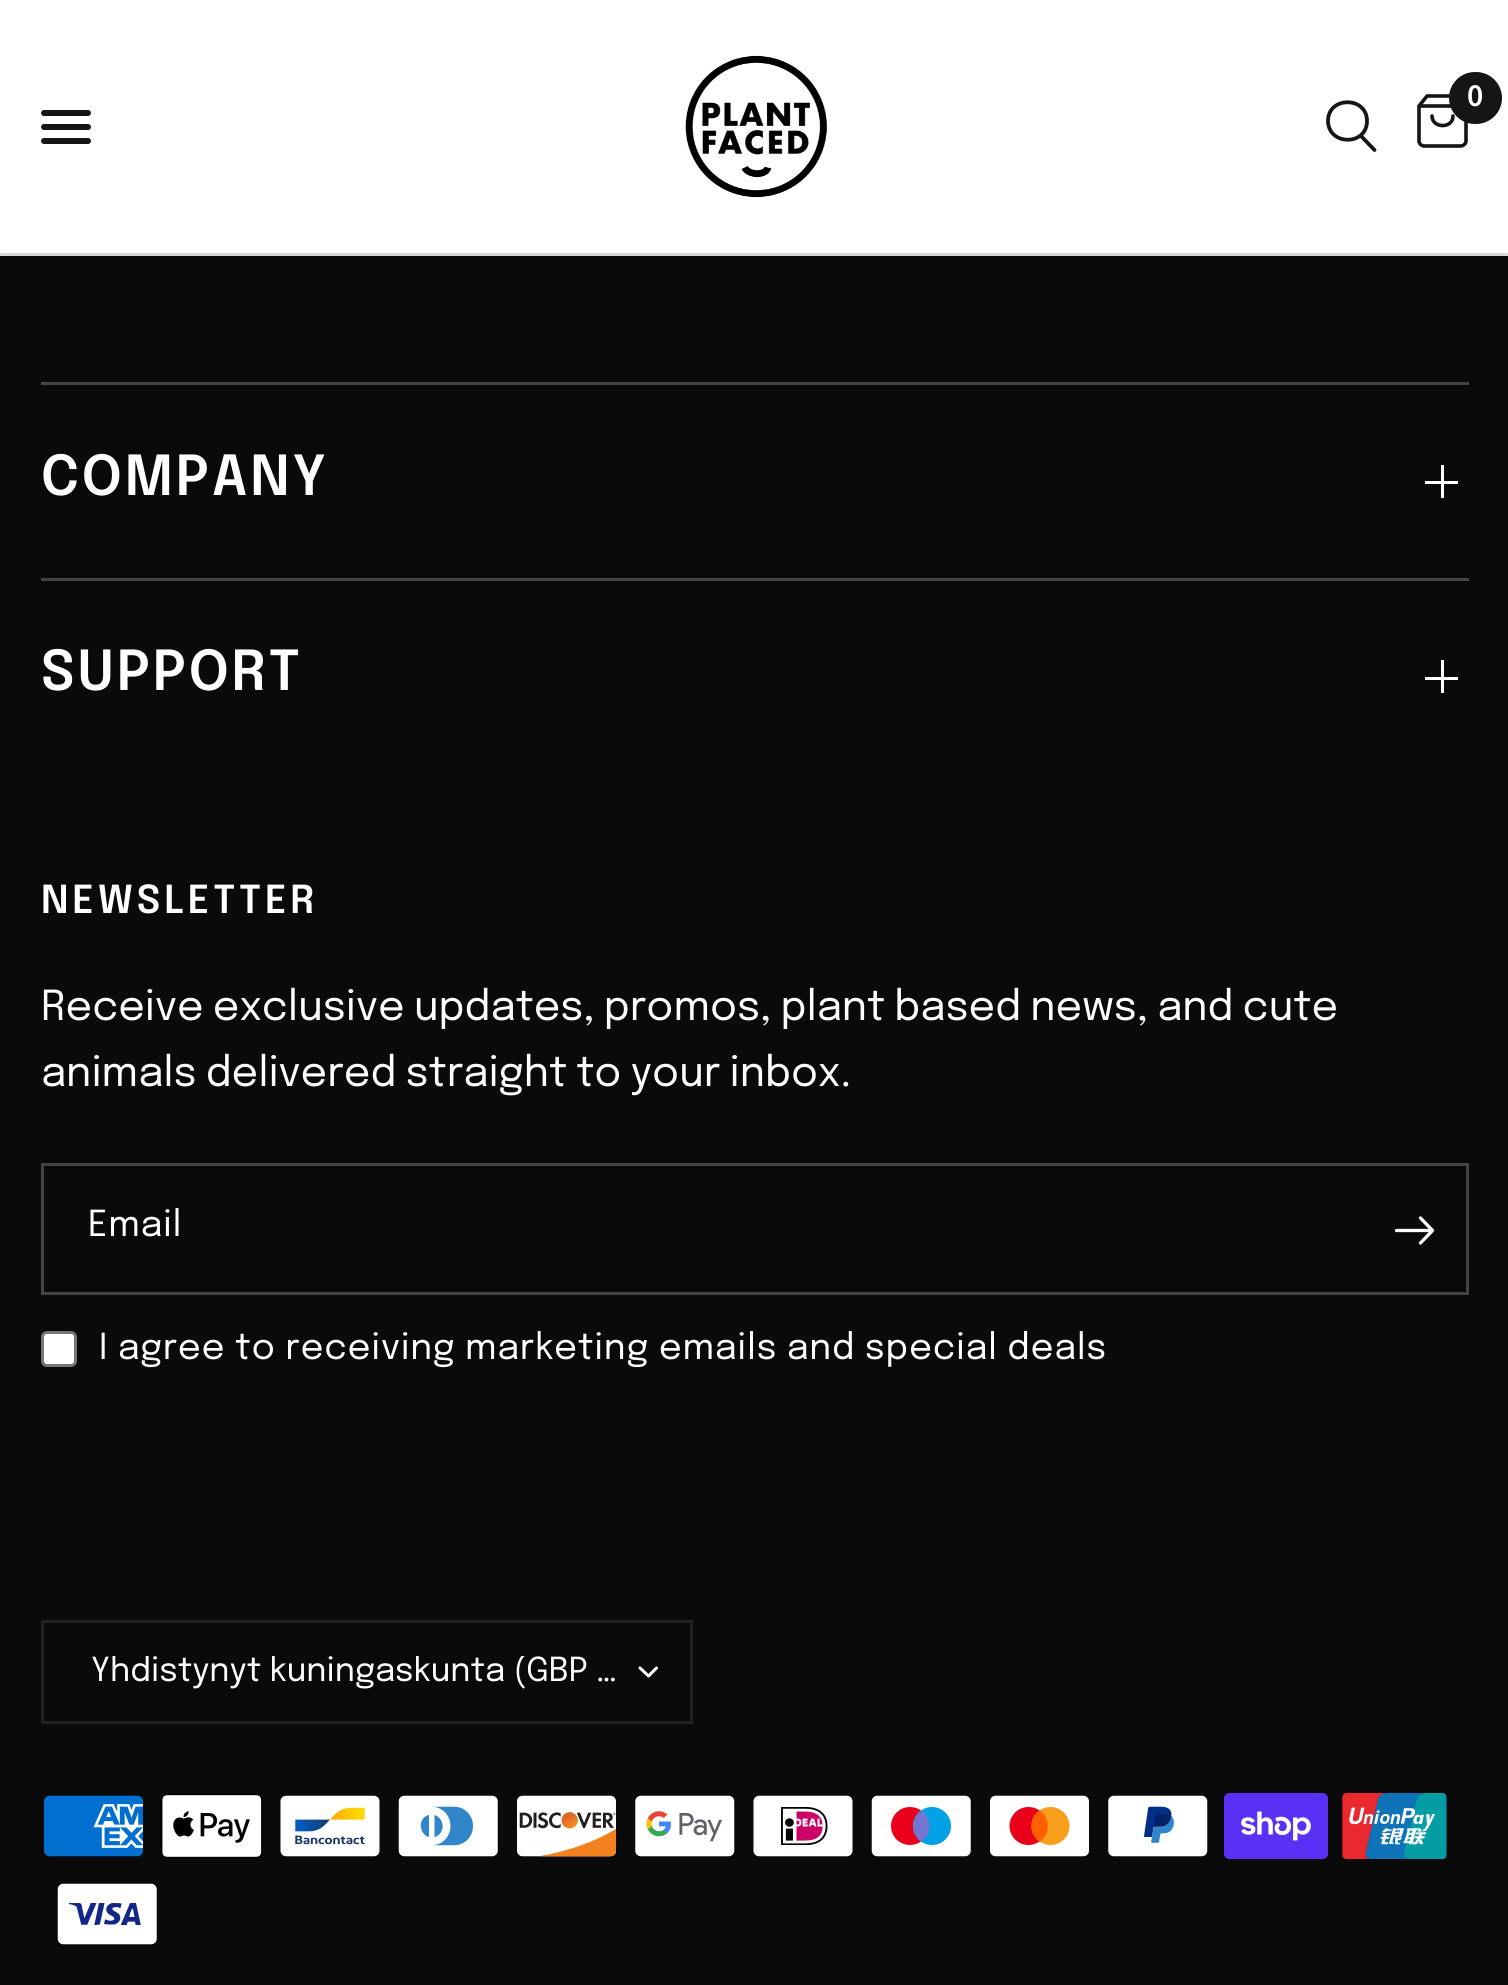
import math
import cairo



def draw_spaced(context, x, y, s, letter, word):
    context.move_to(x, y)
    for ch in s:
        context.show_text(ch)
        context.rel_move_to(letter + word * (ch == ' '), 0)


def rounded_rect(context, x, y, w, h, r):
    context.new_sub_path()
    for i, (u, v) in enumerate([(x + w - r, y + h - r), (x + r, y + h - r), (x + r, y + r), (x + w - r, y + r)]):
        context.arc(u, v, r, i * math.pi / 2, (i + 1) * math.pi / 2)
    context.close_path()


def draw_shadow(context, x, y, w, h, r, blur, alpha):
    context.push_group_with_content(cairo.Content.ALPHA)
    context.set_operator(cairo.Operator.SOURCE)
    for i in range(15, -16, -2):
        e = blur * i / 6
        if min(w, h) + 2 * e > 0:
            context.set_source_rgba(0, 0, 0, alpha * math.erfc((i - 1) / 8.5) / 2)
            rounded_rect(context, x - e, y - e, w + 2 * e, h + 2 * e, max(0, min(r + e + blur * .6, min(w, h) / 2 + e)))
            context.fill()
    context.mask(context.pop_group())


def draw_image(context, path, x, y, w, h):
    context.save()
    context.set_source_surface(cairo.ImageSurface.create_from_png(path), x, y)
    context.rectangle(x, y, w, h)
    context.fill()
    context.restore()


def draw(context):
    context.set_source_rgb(10 / 255, 10 / 255, 10 / 255)
    context.paint()
    context.set_source_rgb(1, 1, 1)
    context.rectangle(0, 0, 1508, 253)
    context.fill()
    context.set_source_rgb(226 / 255, 226 / 255, 226 / 255)
    context.rectangle(0, 253, 1508, 3)
    context.fill()
    context.save()
    context.rectangle(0, 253, 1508, 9)
    context.clip()
    context.set_source_rgb(0, 0, 0)
    draw_shadow(context, 0, 6, 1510, 253, 0, 7, 0.06)
    context.restore()
    draw_image(context, "images/1.png", 685, 55, 143, 143)
    context.new_path()
    context.move_to(1419, 106)
    context.line_to(1427, 96)
    context.line_to(1458, 96)
    context.line_to(1466, 106)
    context.move_to(1419, 106)
    context.line_to(1419, 141)
    context.curve_to(1419, 143.5, 1421.5, 146, 1424, 146)
    context.line_to(1460.5, 146)
    context.curve_to(1463.5, 146, 1466, 143.5, 1466, 141)
    context.line_to(1466, 106)
    context.move_to(1419, 106)
    context.line_to(1466, 106)
    context.move_to(1453, 116)
    context.curve_to(1453, 129, 1432, 128.5, 1432, 116)
    context.set_source_rgb(21 / 255, 21 / 255, 21 / 255)
    context.set_line_width(3.6)
    context.set_line_cap(cairo.LineCap.ROUND)
    context.set_line_join(cairo.LineJoin.ROUND)
    context.stroke()
    rounded_rect(context, 1449, 72, 53, 52, 26)
    context.fill()
    context.new_path()
    context.move_to(1361, 136)
    context.line_to(1374.5, 150)
    context.move_to(1367, 121)
    context.curve_to(1367, 146, 1328.5, 146, 1328, 121)
    context.curve_to(1328, 96, 1367, 96, 1367, 121)
    context.close_path()
    context.set_line_width(3.8)
    context.stroke()
    rounded_rect(context, 41, 110, 50, 6, 3)
    context.fill()
    rounded_rect(context, 41, 124, 50, 6, 3)
    context.fill()
    rounded_rect(context, 41, 138, 50, 6, 3)
    context.fill()
    context.set_source_rgb(68 / 255, 68 / 255, 68 / 255)
    context.rectangle(41, 382, 1428, 3)
    context.fill()
    context.set_source_rgb(1, 1, 1)
    context.rectangle(1441, 465, 3, 33)
    context.fill()
    context.rectangle(1425, 481, 33, 3)
    context.fill()
    context.set_source_rgb(68 / 255, 68 / 255, 68 / 255)
    context.rectangle(41, 578, 1428, 3)
    context.fill()
    context.set_source_rgb(1, 1, 1)
    context.rectangle(1441, 660, 3, 33)
    context.fill()
    context.rectangle(1425, 677, 33, 3)
    context.fill()
    context.rectangle(42.5, 1164.5, 1425, 129)
    context.set_source_rgb(68 / 255, 68 / 255, 68 / 255)
    context.set_line_width(3)
    context.set_line_cap(cairo.LineCap.BUTT)
    context.set_line_join(cairo.LineJoin.MITER)
    context.stroke()
    context.new_path()
    context.move_to(1396.5, 1230.5)
    context.line_to(1429.5, 1230.5)
    context.move_to(1420.5, 1218)
    context.line_to(1432.5, 1230.5)
    context.line_to(1420.5, 1243)
    context.set_source_rgb(1, 1, 1)
    context.set_line_width(3.3)
    context.set_line_cap(cairo.LineCap.ROUND)
    context.set_line_join(cairo.LineJoin.ROUND)
    context.stroke()
    rounded_rect(context, 42.5, 1332.5, 33, 33, 4.5)
    context.fill_preserve()
    context.set_source_rgb(118 / 255, 118 / 255, 118 / 255)
    context.set_line_width(3)
    context.set_line_cap(cairo.LineCap.BUTT)
    context.set_line_join(cairo.LineJoin.MITER)
    context.stroke()
    context.rectangle(42.5, 1621.5, 649, 101)
    context.set_source_rgb(33 / 255, 33 / 255, 33 / 255)
    context.stroke()
    context.new_path()
    context.move_to(656.5, 1668)
    context.line_to(648.5, 1676)
    context.line_to(640, 1668)
    context.set_source_rgb(1, 1, 1)
    context.set_line_cap(cairo.LineCap.ROUND)
    context.set_line_join(cairo.LineJoin.ROUND)
    context.stroke()
    draw_image(context, "images/2.png", 44, 1795, 99, 62)
    draw_image(context, "images/3.png", 160, 1793, 103, 66)
    draw_image(context, "images/4.png", 280, 1795, 100, 62)
    draw_image(context, "images/5.png", 398, 1795, 100, 62)
    draw_image(context, "images/6.png", 517, 1795, 100, 62)
    draw_image(context, "images/7.png", 635, 1795, 100, 62)
    draw_image(context, "images/8.png", 753, 1795, 100, 62)
    draw_image(context, "images/9.png", 871, 1795, 100, 62)
    draw_image(context, "images/10.png", 990, 1795, 99, 62)
    draw_image(context, "images/11.png", 1108, 1795, 100, 62)
    draw_image(context, "images/12.png", 1224, 1793, 104, 66)
    draw_image(context, "images/13.png", 1342, 1793, 105, 66)
    draw_image(context, "images/14.png", 57, 1883, 100, 62)
    context.select_font_face("Epilogue SemiBold")
    context.set_font_size(28)
    context.move_to(1467, 106)
    context.show_text("0")
    context.set_font_size(55)
    draw_spaced(context, 41, 495, "COMPANY", 2.75, 0)
    draw_spaced(context, 41, 690, "SUPPORT", 2.75, 0)
    context.set_font_size(38.5)
    draw_spaced(context, 41, 913, "NEWSLETTER", 3.8, 0)
    context.select_font_face("Epilogue")
    context.set_font_size(41.25)
    draw_spaced(context, 41, 1020, "Receive exclusive updates, promos, plant based news, and cute", 0, -1.25)
    draw_spaced(context, 41, 1086, "animals delivered straight to your inbox.", 0, -1.25)
    context.set_font_size(35.75)
    draw_spaced(context, 88, 1236, "Email", 0.72, 0)
    draw_spaced(context, 99, 1359, "I agree to receiving marketing emails and special deals", 0.72, 0)
    context.save()
    context.rectangle(91, 1656, 533, 33)
    context.clip()
    context.set_font_size(33)
    context.move_to(91, 1681)
    context.show_text("Yhdistynyt kuningaskunta (GBP …")
    context.restore()


surface = cairo.ImageSurface(cairo.Format.RGB24, 1508, 1985)
context = cairo.Context(surface)
options = cairo.FontOptions()
options.set_hint_metrics(cairo.HintMetrics.OFF)
options.set_hint_style(cairo.HintStyle.NONE)
context.set_font_options(options)
context.set_miter_limit(4)
draw(context)
surface.write_to_png("out.png")
